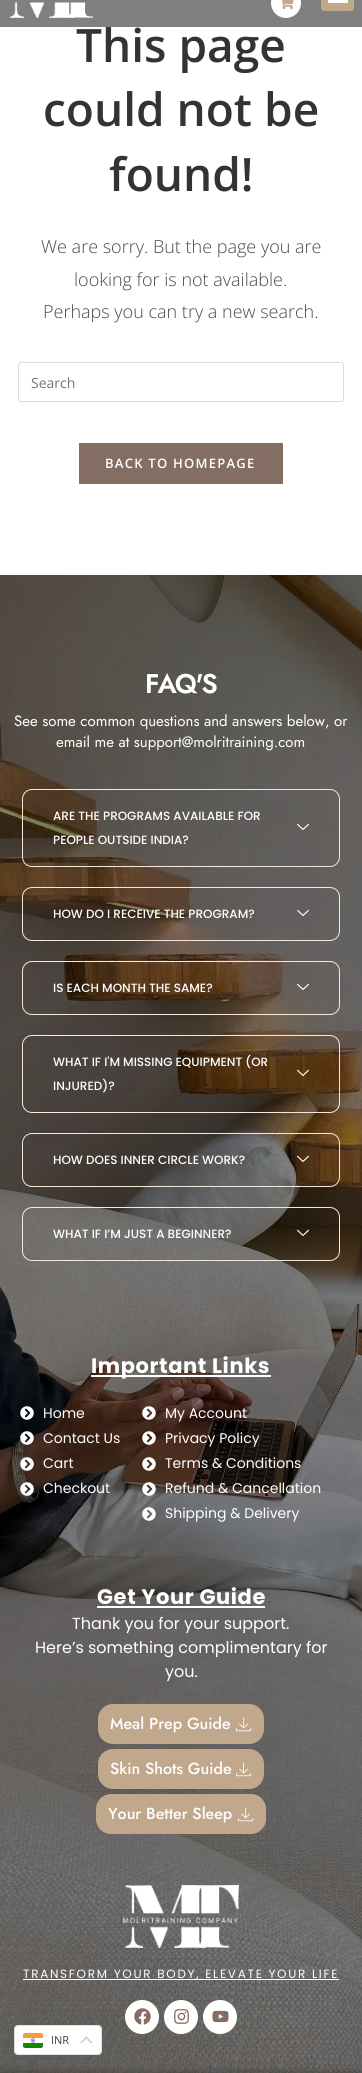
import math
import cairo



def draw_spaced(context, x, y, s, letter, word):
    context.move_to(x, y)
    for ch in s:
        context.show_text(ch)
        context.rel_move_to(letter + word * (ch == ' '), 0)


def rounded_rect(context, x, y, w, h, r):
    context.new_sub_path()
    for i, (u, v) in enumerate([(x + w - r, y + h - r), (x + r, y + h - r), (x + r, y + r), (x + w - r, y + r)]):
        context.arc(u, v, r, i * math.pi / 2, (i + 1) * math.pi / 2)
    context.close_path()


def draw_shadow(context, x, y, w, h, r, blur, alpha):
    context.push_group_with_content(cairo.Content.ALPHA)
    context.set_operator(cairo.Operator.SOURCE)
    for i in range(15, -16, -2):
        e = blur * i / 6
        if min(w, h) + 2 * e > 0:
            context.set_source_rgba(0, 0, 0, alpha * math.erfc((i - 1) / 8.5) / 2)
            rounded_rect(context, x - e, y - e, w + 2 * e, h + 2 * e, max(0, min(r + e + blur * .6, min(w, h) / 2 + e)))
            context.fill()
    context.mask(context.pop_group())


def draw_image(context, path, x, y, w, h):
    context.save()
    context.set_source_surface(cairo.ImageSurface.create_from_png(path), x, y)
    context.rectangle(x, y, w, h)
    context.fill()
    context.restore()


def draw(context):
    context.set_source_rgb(1, 1, 1)
    context.paint()
    context.set_source_rgb(128 / 255, 128 / 255, 128 / 255)
    context.rectangle(0, 0, 362, 27)
    context.fill()
    draw_image(context, "images/1.png", 10, 2, 83, 16)
    context.set_source_rgb(1, 1, 1)
    context.arc(286, 3, 15, 0, 2 * math.pi)
    context.fill()
    draw_image(context, "images/2.png", 282, 0, 12, 10)
    context.set_source_rgb(193 / 255, 167 / 255, 140 / 255)
    rounded_rect(context, 321, -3, 33, 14, 3)
    context.fill()
    context.set_source_rgb(1, 1, 1)
    context.rectangle(328, 0, 20, 3)
    context.fill()
    rounded_rect(context, 18.5, 362.5, 325, 39, 2.5)
    context.set_source_rgb(221 / 255, 221 / 255, 221 / 255)
    context.set_line_width(1)
    context.stroke()
    context.set_source_rgb(132 / 255, 110 / 255, 99 / 255)
    context.rectangle(79, 443, 204, 41)
    context.fill()
    draw_image(context, "images/3.png", 0, 575, 362, 1498)
    rounded_rect(context, 22.5, 789.5, 317, 77, 9.5)
    context.set_source_rgb(244 / 255, 231 / 255, 219 / 255)
    context.stroke()
    draw_image(context, "images/4.png", 297, 823, 12, 7)
    rounded_rect(context, 22.5, 887.5, 317, 53, 9.5)
    context.stroke()
    draw_image(context, "images/5.png", 297, 909, 12, 7)
    rounded_rect(context, 22.5, 961.5, 317, 53, 9.5)
    context.stroke()
    draw_image(context, "images/6.png", 297, 983, 12, 7)
    rounded_rect(context, 22.5, 1035.5, 317, 77, 9.5)
    context.stroke()
    draw_image(context, "images/7.png", 297, 1069, 12, 7)
    rounded_rect(context, 22.5, 1133.5, 317, 53, 9.5)
    context.stroke()
    draw_image(context, "images/8.png", 297, 1155, 12, 7)
    rounded_rect(context, 22.5, 1207.5, 317, 53, 9.5)
    context.stroke()
    draw_image(context, "images/9.png", 297, 1229, 12, 7)
    context.set_source_rgb(1, 1, 1)
    context.rectangle(91, 1375, 180, 2)
    context.fill()
    draw_image(context, "images/10.png", 20, 1406, 14, 14)
    draw_image(context, "images/11.png", 20, 1431, 14, 14)
    draw_image(context, "images/12.png", 20, 1457, 14, 14)
    draw_image(context, "images/13.png", 20, 1482, 14, 14)
    draw_image(context, "images/14.png", 142, 1406, 14, 14)
    draw_image(context, "images/15.png", 142, 1431, 14, 14)
    draw_image(context, "images/16.png", 142, 1457, 14, 14)
    draw_image(context, "images/17.png", 142, 1482, 14, 14)
    draw_image(context, "images/18.png", 142, 1507, 14, 14)
    context.rectangle(97, 1606, 168, 2)
    context.fill()
    context.set_source_rgb(193 / 255, 167 / 255, 140 / 255)
    rounded_rect(context, 98, 1704, 166, 40, 15)
    context.fill()
    draw_image(context, "images/19.png", 236, 1717, 16, 15)
    rounded_rect(context, 98, 1749, 166, 40, 15)
    context.fill()
    draw_image(context, "images/19.png", 236, 1762, 16, 15)
    rounded_rect(context, 96, 1794, 170, 40, 15)
    context.fill()
    draw_image(context, "images/19.png", 238, 1807, 16, 15)
    draw_image(context, "images/20.png", 123, 1885, 116, 63)
    context.set_source_rgb(1, 1, 1)
    context.rectangle(23, 1979, 316, 1)
    context.fill()
    context.arc(142, 2017, 17, 0, 2 * math.pi)
    context.fill()
    draw_image(context, "images/21.png", 134, 2008, 17, 17)
    context.arc(181, 2017, 17, 0, 2 * math.pi)
    context.fill()
    draw_image(context, "images/22.png", 174, 2009, 15, 15)
    context.arc(220, 2017, 17, 0, 2 * math.pi)
    context.fill()
    draw_image(context, "images/23.png", 212, 2010, 17, 13)
    rounded_rect(context, 14.5, 2025.5, 87, 29, 3.5)
    context.fill_preserve()
    context.set_source_rgb(220 / 255, 223 / 255, 230 / 255)
    context.stroke()
    draw_image(context, "images/24.png", 23, 2033, 20, 15)
    context.set_source_rgb(204 / 255, 204 / 255, 204 / 255)
    context.new_path()
    context.move_to(86, 2036.5)
    context.line_to(87.5, 2037.5)
    context.line_to(81.5, 2043.5)
    context.line_to(80.5, 2042.5)
    context.close_path()
    context.fill()
    context.new_path()
    context.move_to(85.5, 2037.5)
    context.line_to(86.5, 2036.5)
    context.line_to(92.5, 2042.5)
    context.line_to(91, 2043.5)
    context.close_path()
    context.fill()
    context.set_source_rgb(0, 0, 0)
    draw_shadow(context, 0, 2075, 362, 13, 0, 5, 0.5)
    context.select_font_face("Open Sans SemiBold")
    context.set_font_size(46)
    context.set_source_rgb(51 / 255, 51 / 255, 51 / 255)
    context.move_to(76, 62)
    context.show_text("This page")
    context.move_to(43, 126)
    context.show_text("could not be")
    context.move_to(109, 191)
    context.show_text("found!")
    context.select_font_face("Open Sans Light")
    context.set_font_size(18)
    context.set_source_rgb(74 / 255, 74 / 255, 74 / 255)
    context.move_to(41, 253)
    context.show_text("We are sorry. But the page you are")
    context.move_to(74, 286)
    context.show_text("looking for is not available.")
    context.move_to(43, 318)
    context.show_text("Perhaps you can try a new search.")
    context.select_font_face("Open Sans")
    context.set_font_size(14)
    context.set_source_rgb(117 / 255, 117 / 255, 117 / 255)
    context.move_to(31, 388)
    context.show_text("Search")
    context.select_font_face("Open Sans SemiBold")
    context.set_font_size(13)
    context.set_source_rgb(1, 1, 1)
    draw_spaced(context, 105, 468, "BACK TO HOMEPAGE", 1.25, 0)
    context.select_font_face("Jost SemiBold")
    context.set_font_size(27)
    draw_spaced(context, 145, 693, "FAQ'S", -2, 0)
    context.select_font_face("Jost")
    context.set_font_size(15)
    context.move_to(14, 726)
    context.show_text("See some common questions and answers below, or")
    context.move_to(56, 747)
    context.show_text("email me at support@molritraining.com")
    context.select_font_face("Poppins Medium")
    context.set_font_size(12)
    context.move_to(53, 820)
    context.show_text("ARE THE PROGRAMS AVAILABLE FOR")
    context.move_to(53, 844)
    context.show_text("PEOPLE OUTSIDE INDIA?")
    context.move_to(53, 918)
    context.show_text("HOW DO I RECEIVE THE PROGRAM?")
    context.move_to(53, 992)
    context.show_text("IS EACH MONTH THE SAME?")
    context.move_to(53, 1066)
    context.show_text("WHAT IF I'M MISSING EQUIPMENT (OR")
    context.move_to(53, 1090)
    context.show_text("INJURED)?")
    context.move_to(53, 1164)
    context.show_text("HOW DOES INNER CIRCLE WORK?")
    context.move_to(53, 1238)
    context.show_text("WHAT IF I’M JUST A BEGINNER?")
    context.select_font_face("Poppins", cairo.FontSlant.NORMAL, cairo.FontWeight.BOLD)
    context.set_font_size(21)
    draw_spaced(context, 91, 1373, "Important Links", 0.6, 0)
    context.select_font_face("Poppins")
    context.set_font_size(14)
    context.move_to(43, 1418)
    context.show_text("Home")
    context.move_to(43, 1443)
    context.show_text("Contact Us")
    context.move_to(43, 1468)
    context.show_text("Cart")
    context.move_to(43, 1493)
    context.show_text("Checkout")
    context.move_to(165, 1418)
    context.show_text("My Account")
    context.move_to(165, 1443)
    context.show_text("Privacy Policy")
    context.move_to(165, 1468)
    context.show_text("Terms & Conditions")
    context.move_to(165, 1493)
    context.show_text("Refund & Cancellation")
    context.move_to(165, 1518)
    context.show_text("Shipping & Delivery")
    context.select_font_face("Poppins", cairo.FontSlant.NORMAL, cairo.FontWeight.BOLD)
    context.set_font_size(21)
    draw_spaced(context, 97, 1604, "Get Your Guide", 0.6, 0)
    context.select_font_face("Poppins")
    context.set_font_size(16)
    context.move_to(72, 1629)
    context.show_text("Thank you for your support.")
    context.move_to(35, 1653)
    context.show_text("Here’s something complimentary for")
    context.move_to(165, 1677)
    context.show_text("you.")
    context.select_font_face("Jost Medium")
    context.move_to(110, 1729)
    context.show_text("Meal Prep Guide")
    context.move_to(110, 1774)
    context.show_text("Skin Shots Guide")
    context.move_to(108, 1819)
    context.show_text("Your Better Sleep")
    context.select_font_face("Poppins")
    context.set_font_size(12)
    draw_spaced(context, 23, 1978, "TRANSFORM YOUR BODY, ELEVATE YOUR LIFE", 1.7, 0)
    context.select_font_face("Open Sans")
    context.set_font_size(11)
    context.set_source_rgb(59 / 255, 59 / 255, 59 / 255)
    context.move_to(51, 2044)
    context.show_text("INR")


surface = cairo.ImageSurface(cairo.Format.RGB24, 362, 2073)
context = cairo.Context(surface)
options = cairo.FontOptions()
options.set_hint_metrics(cairo.HintMetrics.OFF)
options.set_hint_style(cairo.HintStyle.NONE)
context.set_font_options(options)
context.set_miter_limit(4)
draw(context)
surface.write_to_png("out.png")
